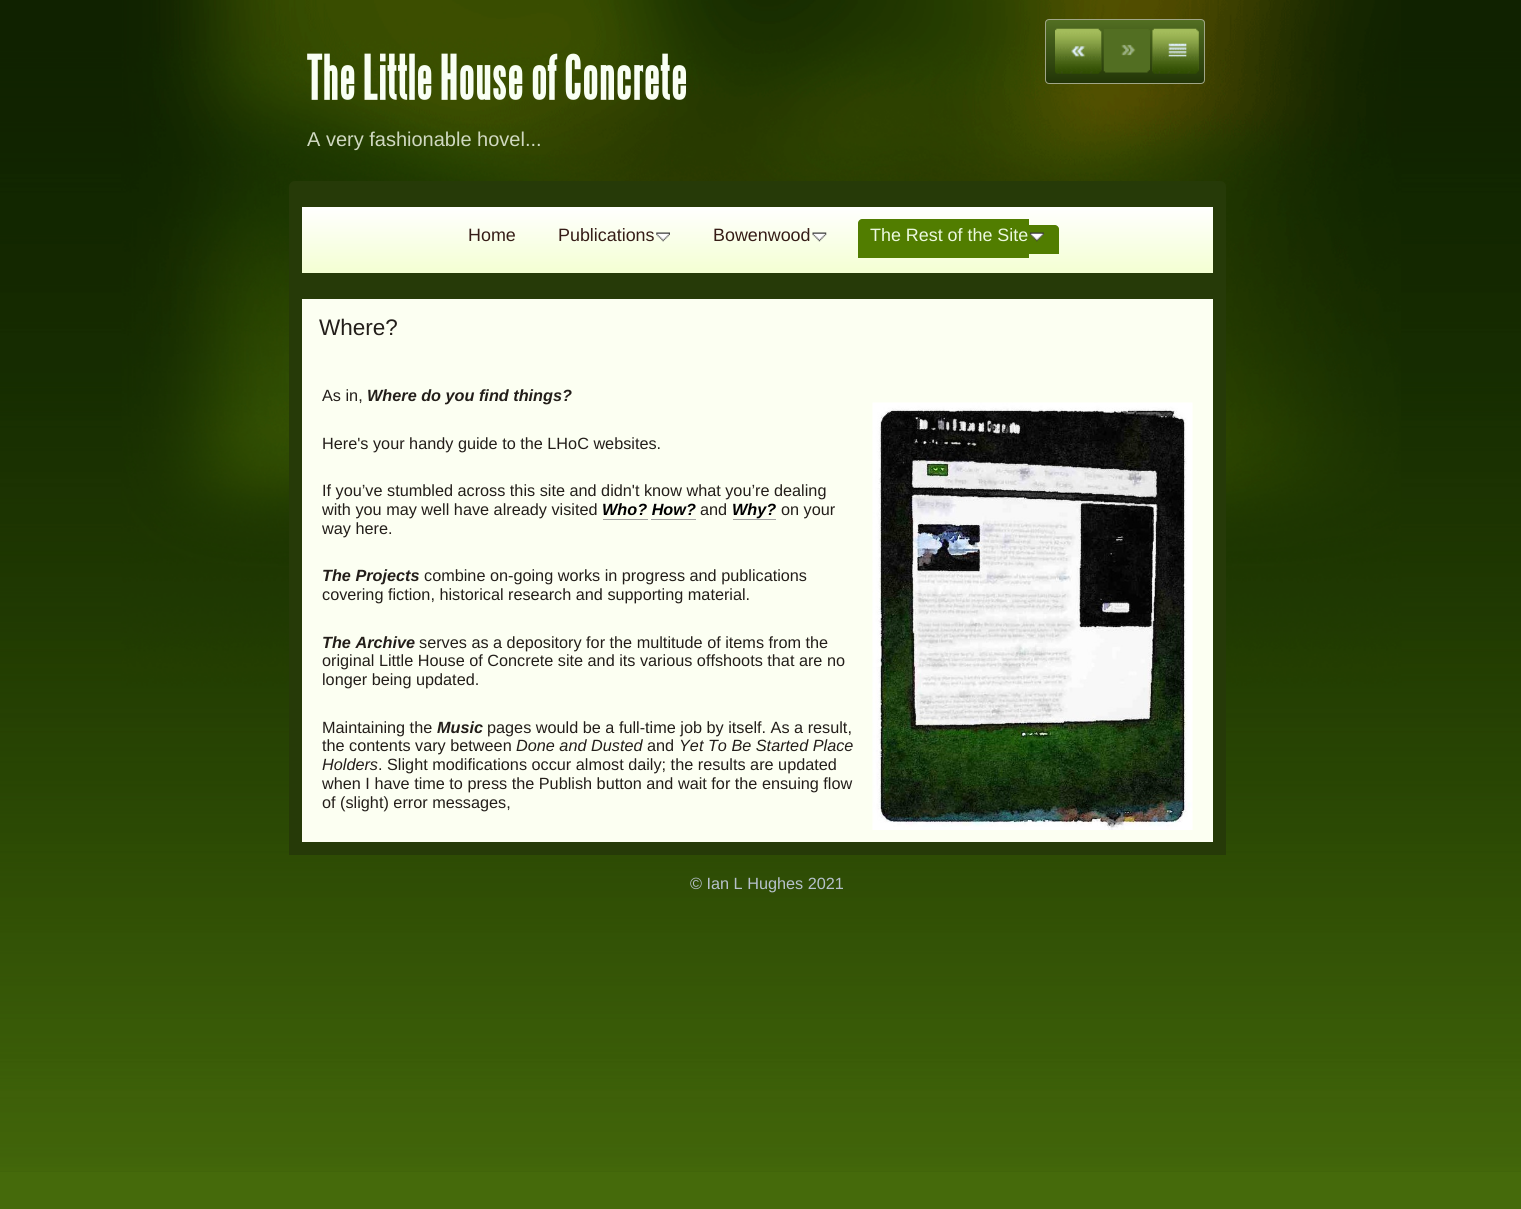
import math
import cairo



def rounded_rect(context, x, y, w, h, r):
    context.new_sub_path()
    for i, (u, v) in enumerate([(x + w - r, y + h - r), (x + r, y + h - r), (x + r, y + r), (x + w - r, y + r)]):
        context.arc(u, v, r, i * math.pi / 2, (i + 1) * math.pi / 2)
    context.close_path()


def draw_image(context, path, x, y, w, h):
    context.save()
    context.set_source_surface(cairo.ImageSurface.create_from_png(path), x, y)
    context.rectangle(x, y, w, h)
    context.fill()
    context.restore()


def draw(context):
    context.set_source_rgb(69 / 255, 106 / 255, 11 / 255)
    context.paint()
    draw_image(context, "images/1.png", 0, 0, 1521, 1172)
    context.set_source_rgb(38 / 255, 58 / 255, 8 / 255)
    context.new_path()
    context.move_to(295, 181)
    context.line_to(1220, 181)
    context.curve_to(1223.5, 181, 1226, 183.5, 1226, 187)
    context.line_to(1226, 206)
    context.line_to(289, 206)
    context.line_to(289, 187)
    context.curve_to(289, 183.5, 291.5, 181, 295, 181)
    context.close_path()
    context.fill()
    gradient = cairo.LinearGradient(301, 274, 301, 206)
    gradient.add_color_stop_rgba(0.05, 244 / 255, 1, 212 / 255, 1)
    gradient.add_color_stop_rgba(1, 1, 1, 1, 1)
    context.set_source(gradient)
    context.rectangle(302, 207, 911, 66)
    context.fill()
    context.rectangle(295.5, 200.5, 924, 79)
    context.set_source_rgb(38 / 255, 58 / 255, 8 / 255)
    context.set_line_width(13)
    context.stroke()
    draw_image(context, "images/2.png", 656, 232, 14, 10)
    draw_image(context, "images/3.png", 812, 232, 15, 10)
    context.set_source_rgb(81 / 255, 125 / 255, 0)
    context.new_path()
    context.move_to(862, 219)
    context.line_to(1029, 219)
    context.line_to(1029, 258)
    context.line_to(858, 258)
    context.line_to(858, 223)
    context.curve_to(858, 221, 860, 219, 862, 219)
    context.close_path()
    context.fill()
    context.new_path()
    context.move_to(1029, 225)
    context.line_to(1055, 225)
    context.curve_to(1057, 225, 1059, 227, 1059, 229)
    context.line_to(1059, 254)
    context.line_to(1029, 254)
    context.close_path()
    context.fill()
    draw_image(context, "images/4.png", 1030, 232, 14, 10)
    context.set_source_rgb(252 / 255, 1, 242 / 255)
    context.new_path()
    context.move_to(295.5, 292.5)
    context.line_to(1219.5, 292.5)
    context.line_to(1219.5, 848.5)
    context.line_to(295.5, 848.5)
    context.close_path()
    context.fill_preserve()
    context.set_source_rgb(38 / 255, 58 / 255, 8 / 255)
    context.stroke()
    context.save()
    rounded_rect(context, 1045, 19, 160, 65, 4)
    context.clip()
    gradient = cairo.LinearGradient(1046, 83, 1046, 20)
    gradient.add_color_stop_rgba(0, 34 / 255, 53 / 255, 7 / 255, 1)
    gradient.add_color_stop_rgba(1, 82 / 255, 110 / 255, 34 / 255, 1)
    context.set_source(gradient)
    context.rectangle(1045, 20, 160, 63)
    context.fill()
    context.restore()
    rounded_rect(context, 1045.5, 19.5, 159, 64, 3.5)
    context.set_source_rgb(160 / 255, 166 / 255, 136 / 255)
    context.set_line_width(1)
    context.stroke()
    draw_image(context, "images/5.png", 1055, 29, 47, 44)
    draw_image(context, "images/6.png", 1055, 28, 47, 46)
    draw_image(context, "images/7.png", 1103, 29, 47, 44)
    draw_image(context, "images/8.png", 1152, 29, 47, 44)
    draw_image(context, "images/9.png", 1152, 28, 47, 46)
    draw_image(context, "images/10.png", 872, 402, 321, 428)
    context.set_source_rgb(158 / 255, 158 / 255, 158 / 255)
    context.rectangle(603, 519, 45, 1)
    context.fill()
    context.rectangle(651, 519, 45, 1)
    context.fill()
    context.rectangle(733, 519, 43, 1)
    context.fill()
    context.select_font_face("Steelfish", cairo.FontSlant.NORMAL, cairo.FontWeight.BOLD)
    context.set_font_size(52.5)
    context.set_source_rgb(249 / 255, 1, 244 / 255)
    context.move_to(307, 99)
    context.show_text("The Little House of Concrete")
    context.select_font_face("Liberation Sans")
    context.set_font_size(20)
    context.set_source_rgb(207 / 255, 216 / 255, 192 / 255)
    context.move_to(307, 146)
    context.show_text("A very fashionable hovel...")
    context.set_font_size(17.9)
    context.set_source_rgb(54 / 255, 29 / 255, 23 / 255)
    context.move_to(468, 241)
    context.show_text("Home")
    context.move_to(558, 241)
    context.show_text("Publications")
    context.move_to(713, 241)
    context.show_text("Bowenwood")
    context.set_source_rgb(236 / 255, 249 / 255, 223 / 255)
    context.move_to(870, 241)
    context.show_text("The Rest of the Site")
    context.set_font_size(22.5)
    context.set_source_rgb(35 / 255, 30 / 255, 26 / 255)
    context.move_to(319, 335)
    context.show_text("Where?")
    context.set_font_size(16.25)
    context.move_to(322, 401)
    context.show_text("As in,")
    context.select_font_face("Liberation Sans", cairo.FontSlant.ITALIC, cairo.FontWeight.BOLD)
    context.move_to(367, 401)
    context.show_text("Where do you find things?")
    context.select_font_face("Liberation Sans")
    context.move_to(322, 449)
    context.show_text("Here's your handy guide to the LHoC websites.")
    context.move_to(322, 496)
    context.show_text("If you’ve stumbled across this site and didn't know what you’re dealing")
    context.move_to(322, 515)
    context.show_text("with you may well have already visited")
    context.select_font_face("Liberation Sans", cairo.FontSlant.ITALIC, cairo.FontWeight.BOLD)
    context.set_source_rgb(0, 0, 0)
    context.move_to(602, 515)
    context.show_text("Who? How?")
    context.select_font_face("Liberation Sans")
    context.set_source_rgb(35 / 255, 30 / 255, 26 / 255)
    context.move_to(700, 515)
    context.show_text("and")
    context.select_font_face("Liberation Sans", cairo.FontSlant.ITALIC, cairo.FontWeight.BOLD)
    context.set_source_rgb(0, 0, 0)
    context.move_to(732, 515)
    context.show_text("Why?")
    context.select_font_face("Liberation Sans")
    context.set_source_rgb(35 / 255, 30 / 255, 26 / 255)
    context.move_to(781, 515)
    context.show_text("on your")
    context.move_to(322, 534)
    context.show_text("way here.")
    context.select_font_face("Liberation Sans", cairo.FontSlant.ITALIC, cairo.FontWeight.BOLD)
    context.move_to(322, 581)
    context.show_text("The Projects")
    context.select_font_face("Liberation Sans")
    context.move_to(424, 581)
    context.show_text("combine on-going works in progress and publications")
    context.move_to(322, 600)
    context.show_text("covering fiction, historical research and supporting material.")
    context.select_font_face("Liberation Sans", cairo.FontSlant.ITALIC, cairo.FontWeight.BOLD)
    context.move_to(322, 648)
    context.show_text("The Archive")
    context.select_font_face("Liberation Sans")
    context.move_to(419, 648)
    context.show_text("serves as a depository for the multitude of items from the")
    context.move_to(322, 666)
    context.show_text("original Little House of Concrete site and its various offshoots that are no")
    context.move_to(322, 685)
    context.show_text("longer being updated.")
    context.move_to(322, 733)
    context.show_text("Maintaining the")
    context.select_font_face("Liberation Sans", cairo.FontSlant.ITALIC, cairo.FontWeight.BOLD)
    context.move_to(437, 733)
    context.show_text("Music")
    context.select_font_face("Liberation Sans")
    context.move_to(487, 733)
    context.show_text("pages would be a full-time job by itself. As a result,")
    context.move_to(322, 751)
    context.show_text("the contents vary between")
    context.select_font_face("Liberation Sans", cairo.FontSlant.ITALIC)
    context.move_to(516, 751)
    context.show_text("Done and Dusted")
    context.select_font_face("Liberation Sans")
    context.move_to(647, 751)
    context.show_text("and")
    context.select_font_face("Liberation Sans", cairo.FontSlant.ITALIC)
    context.move_to(679, 751)
    context.show_text("Yet To Be Started Place")
    context.move_to(322, 770)
    context.show_text("Holders")
    context.select_font_face("Liberation Sans")
    context.move_to(378, 770)
    context.show_text(". Slight modifications occur almost daily; the results are updated")
    context.move_to(322, 789)
    context.show_text("when I have time to press the Publish button and wait for the ensuing flow")
    context.move_to(322, 808)
    context.show_text("of (slight) error messages,")
    context.set_source_rgb(182 / 255, 193 / 255, 204 / 255)
    context.move_to(690, 889)
    context.show_text("© Ian L Hughes 2021")


surface = cairo.ImageSurface(cairo.Format.RGB24, 1521, 1209)
context = cairo.Context(surface)
options = cairo.FontOptions()
options.set_hint_metrics(cairo.HintMetrics.OFF)
options.set_hint_style(cairo.HintStyle.NONE)
context.set_font_options(options)
context.set_miter_limit(4)
draw(context)
surface.write_to_png("out.png")
